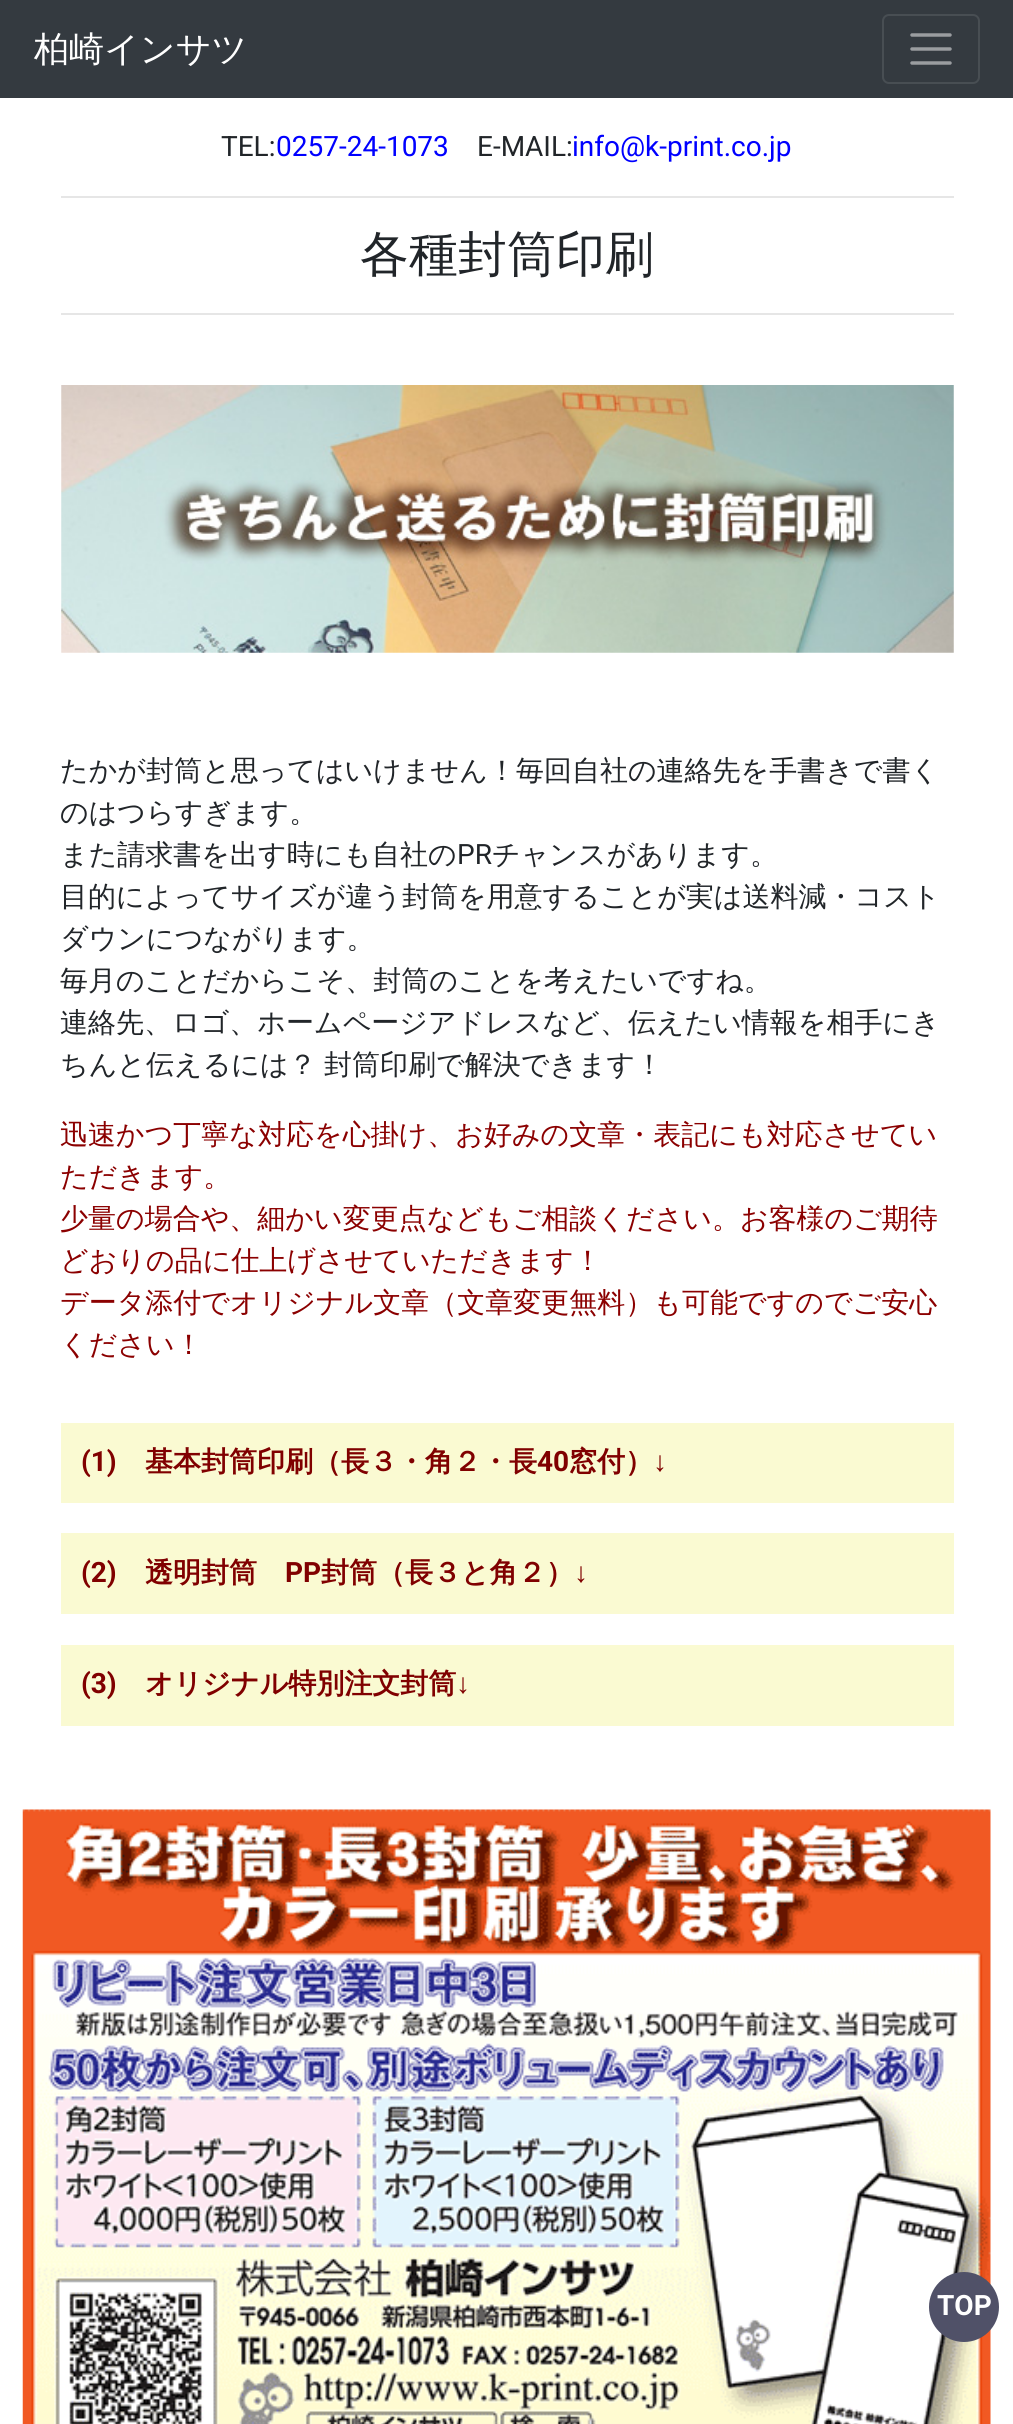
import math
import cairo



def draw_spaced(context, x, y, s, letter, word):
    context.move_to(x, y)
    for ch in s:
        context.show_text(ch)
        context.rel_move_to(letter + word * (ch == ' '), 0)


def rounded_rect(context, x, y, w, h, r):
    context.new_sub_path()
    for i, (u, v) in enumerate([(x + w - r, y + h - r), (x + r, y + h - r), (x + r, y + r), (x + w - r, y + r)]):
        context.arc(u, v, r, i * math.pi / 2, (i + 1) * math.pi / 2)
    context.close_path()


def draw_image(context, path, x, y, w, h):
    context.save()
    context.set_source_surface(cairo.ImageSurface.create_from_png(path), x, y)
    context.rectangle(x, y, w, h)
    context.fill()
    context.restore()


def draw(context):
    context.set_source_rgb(1, 1, 1)
    context.paint()
    context.set_source_rgb(52 / 255, 58 / 255, 64 / 255)
    context.rectangle(0, 0, 1013, 98)
    context.fill()
    rounded_rect(context, 883, 15, 96, 68, 6)
    context.set_source_rgb(72 / 255, 78 / 255, 83 / 255)
    context.stroke()
    context.new_path()
    context.move_to(912, 35)
    context.line_to(950, 35)
    context.move_to(912, 49)
    context.line_to(950, 49)
    context.move_to(912, 63)
    context.line_to(950, 63)
    context.set_source_rgb(154 / 255, 157 / 255, 160 / 255)
    context.set_line_width(3.5)
    context.set_line_cap(cairo.LineCap.ROUND)
    context.stroke()
    context.set_source_rgb(230 / 255, 230 / 255, 230 / 255)
    context.rectangle(61, 196, 893, 2)
    context.fill()
    context.rectangle(61, 313, 893, 2)
    context.fill()
    draw_image(context, "images/1.png", 61, 385, 893, 268)
    context.set_source_rgb(250 / 255, 250 / 255, 210 / 255)
    context.rectangle(61, 1423, 893, 80)
    context.fill()
    context.rectangle(61, 1533, 893, 81)
    context.fill()
    context.rectangle(61, 1645, 893, 81)
    context.fill()
    draw_image(context, "images/2.png", 22, 1809, 969, 615)
    context.set_source_rgb(80 / 255, 81 / 255, 104 / 255)
    context.arc(964, 2307, 35, 0, 2 * math.pi)
    context.fill()
    context.select_font_face("WenQuanYi Zen Hei Medium")
    context.set_font_size(35)
    context.set_source_rgb(1, 1, 1)
    context.move_to(34, 61)
    context.show_text("柏崎インサツ")
    context.select_font_face("Roboto")
    context.set_font_size(28)
    context.set_source_rgb(33 / 255, 37 / 255, 41 / 255)
    context.move_to(221, 156)
    context.show_text("TEL:")
    context.set_source_rgb(0, 0, 1)
    context.move_to(276, 156)
    context.show_text("0257-24-1073")
    context.set_source_rgb(33 / 255, 37 / 255, 41 / 255)
    context.move_to(477, 156)
    context.show_text("E-MAIL:")
    context.set_source_rgb(0, 0, 1)
    context.move_to(572, 156)
    context.show_text("info@k-print.co.jp")
    context.select_font_face("WenQuanYi Zen Hei Medium")
    context.set_font_size(49)
    context.set_source_rgb(33 / 255, 37 / 255, 41 / 255)
    context.move_to(360, 271)
    context.show_text("各種封筒印刷")
    context.set_font_size(28)
    context.move_to(60, 780)
    context.show_text("たかが封筒と思ってはいけません！毎回自社の連絡先を手書きで書く")
    context.move_to(60, 822)
    context.show_text("のはつらすぎます。")
    context.move_to(60, 864)
    context.show_text("また請求書を出す時にも自社の")
    context.select_font_face("Roboto")
    context.move_to(457, 864)
    context.show_text("PR")
    context.select_font_face("WenQuanYi Zen Hei Medium")
    context.move_to(492, 864)
    context.show_text("チャンスがあります。")
    context.move_to(60, 906)
    context.show_text("目的によってサイズが違う封筒を用意することが実は送料減・コスト")
    context.move_to(60, 948)
    context.show_text("ダウンにつながります。")
    context.move_to(60, 990)
    context.show_text("毎月のことだからこそ、封筒のことを考えたいですね。")
    context.move_to(60, 1032)
    context.show_text("連絡先、ロゴ、ホームページアドレスなど、伝えたい情報を相手にき")
    draw_spaced(context, 60, 1074, "ちんと伝えるには？ 封筒印刷で解決できます！", 0, -1)
    context.set_source_rgb(139 / 255, 0, 0)
    context.move_to(60, 1144)
    context.show_text("迅速かつ丁寧な対応を心掛け、お好みの文章・表記にも対応させてい")
    context.move_to(60, 1186)
    context.show_text("ただきます。")
    context.move_to(60, 1228)
    context.show_text("少量の場合や、細かい変更点などもご相談ください。お客様のご期待")
    context.move_to(60, 1270)
    context.show_text("どおりの品に仕上げさせていただきます！")
    context.move_to(60, 1312)
    context.show_text("データ添付でオリジナル文章（文章変更無料）も可能ですのでご安心")
    context.move_to(60, 1354)
    context.show_text("ください！")
    context.select_font_face("Roboto", cairo.FontSlant.NORMAL, cairo.FontWeight.BOLD)
    context.set_source_rgb(128 / 255, 0, 0)
    context.move_to(81, 1471)
    context.show_text("(1)")
    context.select_font_face("WenQuanYi Zen Hei", cairo.FontSlant.NORMAL, cairo.FontWeight.BOLD)
    context.move_to(145, 1471)
    context.show_text("基本封筒印刷（長３・角２・長")
    context.select_font_face("Roboto", cairo.FontSlant.NORMAL, cairo.FontWeight.BOLD)
    context.move_to(537, 1471)
    context.show_text("40")
    context.select_font_face("WenQuanYi Zen Hei", cairo.FontSlant.NORMAL, cairo.FontWeight.BOLD)
    context.move_to(569, 1471)
    context.show_text("窓付）")
    context.select_font_face("Liberation Sans", cairo.FontSlant.NORMAL, cairo.FontWeight.BOLD)
    context.move_to(653, 1471)
    context.show_text("↓")
    context.select_font_face("Roboto", cairo.FontSlant.NORMAL, cairo.FontWeight.BOLD)
    context.move_to(81, 1582)
    context.show_text("(2)")
    context.select_font_face("WenQuanYi Zen Hei", cairo.FontSlant.NORMAL, cairo.FontWeight.BOLD)
    context.move_to(145, 1582)
    context.show_text("透明封筒")
    context.select_font_face("Roboto", cairo.FontSlant.NORMAL, cairo.FontWeight.BOLD)
    context.move_to(285, 1582)
    context.show_text("PP")
    context.select_font_face("WenQuanYi Zen Hei", cairo.FontSlant.NORMAL, cairo.FontWeight.BOLD)
    context.move_to(321, 1582)
    context.show_text("封筒（長３と角２）")
    context.select_font_face("Liberation Sans", cairo.FontSlant.NORMAL, cairo.FontWeight.BOLD)
    context.move_to(574, 1582)
    context.show_text("↓")
    context.select_font_face("Roboto", cairo.FontSlant.NORMAL, cairo.FontWeight.BOLD)
    context.move_to(81, 1693)
    context.show_text("(3)")
    context.select_font_face("WenQuanYi Zen Hei", cairo.FontSlant.NORMAL, cairo.FontWeight.BOLD)
    context.move_to(145, 1693)
    context.show_text("オリジナル特別注文封筒")
    context.select_font_face("Liberation Sans", cairo.FontSlant.NORMAL, cairo.FontWeight.BOLD)
    context.move_to(456, 1693)
    context.show_text("↓")
    context.select_font_face("Roboto", cairo.FontSlant.NORMAL, cairo.FontWeight.BOLD)
    context.set_source_rgb(1, 1, 1)
    context.move_to(937, 2315)
    context.show_text("TOP")


surface = cairo.ImageSurface(cairo.Format.RGB24, 1013, 2424)
context = cairo.Context(surface)
options = cairo.FontOptions()
options.set_hint_metrics(cairo.HintMetrics.OFF)
options.set_hint_style(cairo.HintStyle.NONE)
context.set_font_options(options)
context.set_miter_limit(4)
draw(context)
surface.write_to_png("out.png")
